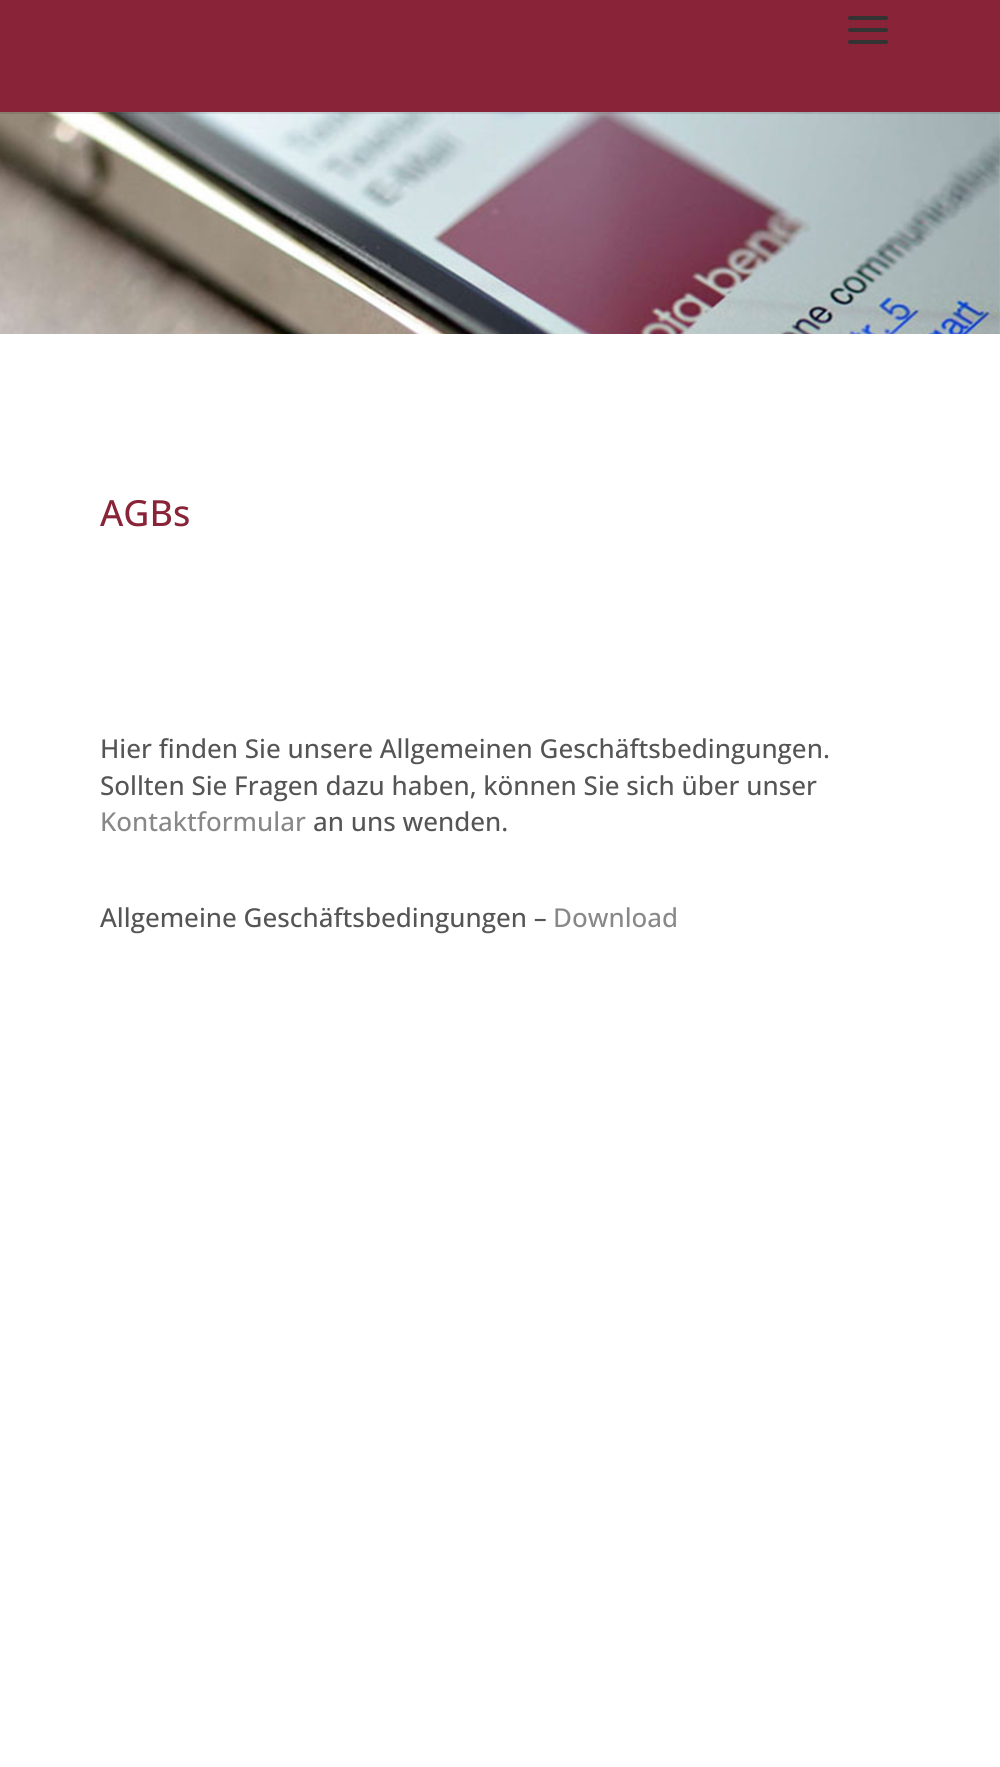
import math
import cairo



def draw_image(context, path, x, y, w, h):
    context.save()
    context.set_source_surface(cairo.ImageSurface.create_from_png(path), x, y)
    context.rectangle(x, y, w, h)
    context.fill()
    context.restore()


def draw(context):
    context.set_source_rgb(1, 1, 1)
    context.paint()
    draw_image(context, "images/2.png", 0, 112, 1000, 222)
    context.set_source_rgba(0, 0, 0, 0.1)
    context.rectangle(0, 112, 1000, 2)
    context.fill()
    context.set_source_rgb(137 / 255, 35 / 255, 56 / 255)
    context.rectangle(0, 0, 1000, 112)
    context.fill()
    draw_image(context, "images/1.png", 848, 16, 40, 28)
    context.select_font_face("Open Sans Medium")
    context.set_font_size(36)
    context.move_to(100, 526)
    context.show_text("AGBs")
    context.set_font_size(26)
    context.set_source_rgb(85 / 255, 85 / 255, 85 / 255)
    context.move_to(100, 758)
    context.show_text("Hier finden Sie unsere Allgemeinen Geschäftsbedingungen.")
    context.move_to(100, 795)
    context.show_text("Sollten Sie Fragen dazu haben, können Sie sich über unser")
    context.set_source_rgb(136 / 255, 136 / 255, 136 / 255)
    context.move_to(100, 831)
    context.show_text("Kontaktformular")
    context.set_source_rgb(85 / 255, 85 / 255, 85 / 255)
    context.move_to(313, 831)
    context.show_text("an uns wenden.")
    context.move_to(100, 927)
    context.show_text("Allgemeine Geschäftsbedingungen –")
    context.set_source_rgb(136 / 255, 136 / 255, 136 / 255)
    context.move_to(553, 927)
    context.show_text("Download")


surface = cairo.ImageSurface(cairo.Format.RGB24, 1000, 1767)
context = cairo.Context(surface)
options = cairo.FontOptions()
options.set_hint_metrics(cairo.HintMetrics.OFF)
options.set_hint_style(cairo.HintStyle.NONE)
context.set_font_options(options)
context.set_miter_limit(4)
draw(context)
surface.write_to_png("out.png")
